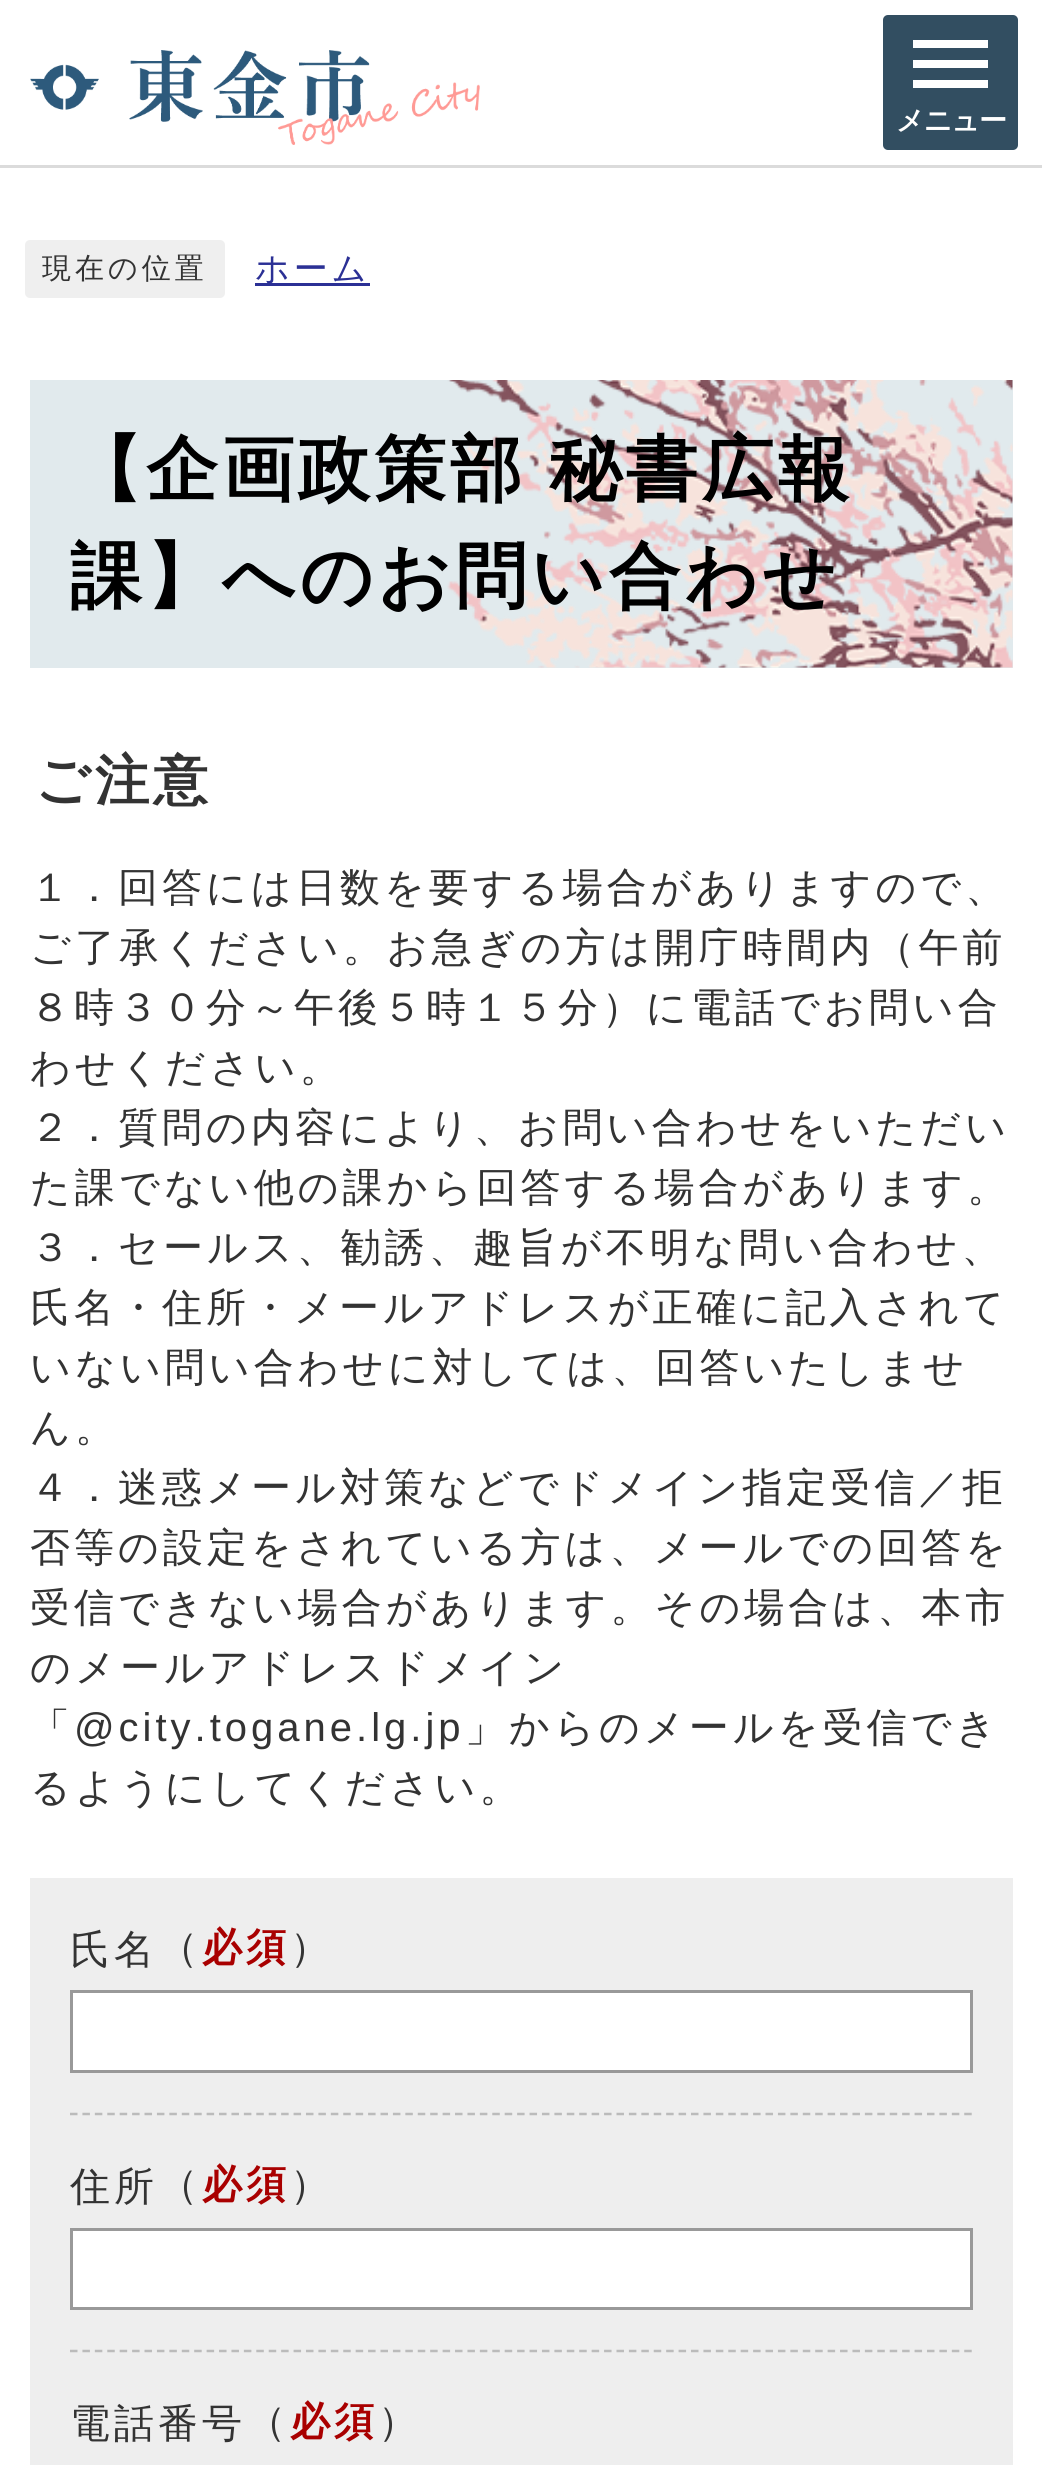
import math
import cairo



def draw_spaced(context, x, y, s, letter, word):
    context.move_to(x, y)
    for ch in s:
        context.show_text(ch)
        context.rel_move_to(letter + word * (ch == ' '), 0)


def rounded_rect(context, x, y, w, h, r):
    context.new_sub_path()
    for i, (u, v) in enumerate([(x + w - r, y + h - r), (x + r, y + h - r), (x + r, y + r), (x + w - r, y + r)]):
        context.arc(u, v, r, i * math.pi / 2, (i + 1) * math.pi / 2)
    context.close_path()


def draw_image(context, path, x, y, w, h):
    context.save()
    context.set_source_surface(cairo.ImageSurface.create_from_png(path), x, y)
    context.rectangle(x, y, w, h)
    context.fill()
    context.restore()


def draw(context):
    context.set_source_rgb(1, 1, 1)
    context.paint()
    context.set_source_rgb(219 / 255, 219 / 255, 219 / 255)
    context.rectangle(0, 165, 1042, 3)
    context.fill()
    draw_image(context, "images/1.png", 30, 50, 450, 95)
    context.set_source_rgb(50 / 255, 78 / 255, 97 / 255)
    rounded_rect(context, 883, 15, 135, 135, 5)
    context.fill()
    context.set_source_rgb(1, 1, 1)
    context.rectangle(913, 40, 75, 8)
    context.fill()
    context.rectangle(913, 60, 75, 8)
    context.fill()
    context.rectangle(913, 80, 75, 8)
    context.fill()
    context.set_source_rgb(239 / 255, 239 / 255, 239 / 255)
    rounded_rect(context, 25, 240, 200, 58, 5)
    context.fill()
    context.set_source_rgb(43 / 255, 48 / 255, 149 / 255)
    context.rectangle(255, 283, 115, 3)
    context.fill()
    context.set_source_rgb(225 / 255, 234 / 255, 237 / 255)
    context.rectangle(30, 380, 983, 288)
    context.fill()
    draw_image(context, "images/2.png", 447, 380, 566, 288)
    context.set_source_rgb(238 / 255, 238 / 255, 238 / 255)
    context.rectangle(30, 1878, 983, 587)
    context.fill()
    context.new_path()
    context.move_to(70, 2114)
    context.line_to(972.5, 2114)
    context.set_source_rgb(187 / 255, 187 / 255, 187 / 255)
    context.set_line_width(2.5)
    context.set_dash([7.5, 4.92])
    context.stroke()
    context.set_source_rgb(1, 1, 1)
    context.rectangle(71.5, 1991.5, 900, 80)
    context.fill_preserve()
    context.set_source_rgb(153 / 255, 153 / 255, 153 / 255)
    context.set_line_width(3)
    context.set_dash([])
    context.stroke()
    context.new_path()
    context.move_to(70, 2351)
    context.line_to(972.5, 2351)
    context.set_source_rgb(187 / 255, 187 / 255, 187 / 255)
    context.set_line_width(2.5)
    context.set_dash([7.5, 4.92])
    context.stroke()
    context.set_source_rgb(1, 1, 1)
    context.rectangle(71.5, 2229.5, 900, 79)
    context.fill_preserve()
    context.set_source_rgb(153 / 255, 153 / 255, 153 / 255)
    context.set_line_width(3)
    context.set_dash([])
    context.stroke()
    context.select_font_face("WenQuanYi Zen Hei", cairo.FontSlant.NORMAL, cairo.FontWeight.BOLD)
    context.set_font_size(28)
    context.set_source_rgb(1, 1, 1)
    draw_spaced(context, 896, 130, "メニュー", -1, 0)
    context.select_font_face("WenQuanYi Zen Hei Medium")
    context.set_font_size(29)
    context.set_source_rgb(51 / 255, 51 / 255, 51 / 255)
    draw_spaced(context, 42, 278, "現在の位置", 4, 0)
    context.set_font_size(34)
    context.set_source_rgb(43 / 255, 48 / 255, 149 / 255)
    draw_spaced(context, 255, 280, "ホーム", 4, 0)
    context.select_font_face("WenQuanYi Zen Hei", cairo.FontSlant.NORMAL, cairo.FontWeight.BOLD)
    context.set_font_size(72)
    context.set_source_rgb(0, 0, 0)
    draw_spaced(context, 70, 494, "【企画政策部 秘書広報", 4, -2)
    draw_spaced(context, 70, 601, "課】へのお問い合わせ", 4, 0)
    context.set_font_size(54.5)
    context.set_source_rgb(51 / 255, 51 / 255, 51 / 255)
    draw_spaced(context, 35, 799, "ご注意", 4, 0)
    context.select_font_face("WenQuanYi Zen Hei Medium")
    context.set_font_size(40)
    draw_spaced(context, 30, 901, "１．回答には日数を要する場合がありますので、", 4, 0)
    draw_spaced(context, 30, 961, "ご了承ください。お急ぎの方は開庁時間内（午前", 4, 0)
    draw_spaced(context, 30, 1021, "８時３０分～午後５時１５分）に電話でお問い合", 4, 0)
    draw_spaced(context, 30, 1081, "わせください。", 4, 0)
    draw_spaced(context, 30, 1141, "２．質問の内容により、お問い合わせをいただい", 4, 0)
    draw_spaced(context, 30, 1201, "た課でない他の課から回答する場合があります。", 4, 0)
    draw_spaced(context, 30, 1261, "３．セールス、勧誘、趣旨が不明な問い合わせ、", 4, 0)
    draw_spaced(context, 30, 1321, "氏名・住所・メールアドレスが正確に記入されて", 4, 0)
    draw_spaced(context, 30, 1381, "いない問い合わせに対しては、回答いたしませ", 4, 0)
    draw_spaced(context, 30, 1441, "ん。", 4, 0)
    draw_spaced(context, 30, 1501, "４．迷惑メール対策などでドメイン指定受信／拒", 4, 0)
    draw_spaced(context, 30, 1561, "否等の設定をされている方は、メールでの回答を", 4, 0)
    draw_spaced(context, 30, 1621, "受信できない場合があります。その場合は、本市", 4, 0)
    draw_spaced(context, 30, 1681, "のメールアドレスドメイン", 4, 0)
    draw_spaced(context, 30, 1741, "「", 4, 0)
    context.select_font_face("Liberation Sans")
    draw_spaced(context, 74, 1741, "@city.togane.lg.jp", 4, 0)
    context.select_font_face("WenQuanYi Zen Hei Medium")
    draw_spaced(context, 465, 1741, "」からのメールを受信でき", 4, 0)
    draw_spaced(context, 30, 1801, "るようにしてください。", 4, 0)
    draw_spaced(context, 70, 1963, "氏名", 4, 0)
    draw_spaced(context, 158, 1961, "（", 4, 0)
    context.select_font_face("WenQuanYi Zen Hei", cairo.FontSlant.NORMAL, cairo.FontWeight.BOLD)
    context.set_source_rgb(169 / 255, 0, 0)
    draw_spaced(context, 202, 1961, "必須", 4, 0)
    context.select_font_face("WenQuanYi Zen Hei Medium")
    context.set_source_rgb(51 / 255, 51 / 255, 51 / 255)
    draw_spaced(context, 290, 1961, "）", 4, 0)
    draw_spaced(context, 70, 2200, "住所", 4, 0)
    draw_spaced(context, 158, 2198, "（", 4, 0)
    context.select_font_face("WenQuanYi Zen Hei", cairo.FontSlant.NORMAL, cairo.FontWeight.BOLD)
    context.set_source_rgb(169 / 255, 0, 0)
    draw_spaced(context, 202, 2198, "必須", 4, 0)
    context.select_font_face("WenQuanYi Zen Hei Medium")
    context.set_source_rgb(51 / 255, 51 / 255, 51 / 255)
    draw_spaced(context, 290, 2198, "）", 4, 0)
    draw_spaced(context, 70, 2437, "電話番号", 4, 0)
    draw_spaced(context, 246, 2435, "（", 4, 0)
    context.select_font_face("WenQuanYi Zen Hei", cairo.FontSlant.NORMAL, cairo.FontWeight.BOLD)
    context.set_source_rgb(169 / 255, 0, 0)
    draw_spaced(context, 290, 2435, "必須", 4, 0)
    context.select_font_face("WenQuanYi Zen Hei Medium")
    context.set_source_rgb(51 / 255, 51 / 255, 51 / 255)
    draw_spaced(context, 378, 2435, "）", 4, 0)


surface = cairo.ImageSurface(cairo.Format.RGB24, 1042, 2465)
context = cairo.Context(surface)
options = cairo.FontOptions()
options.set_hint_metrics(cairo.HintMetrics.OFF)
options.set_hint_style(cairo.HintStyle.NONE)
context.set_font_options(options)
context.set_miter_limit(4)
draw(context)
surface.write_to_png("out.png")
